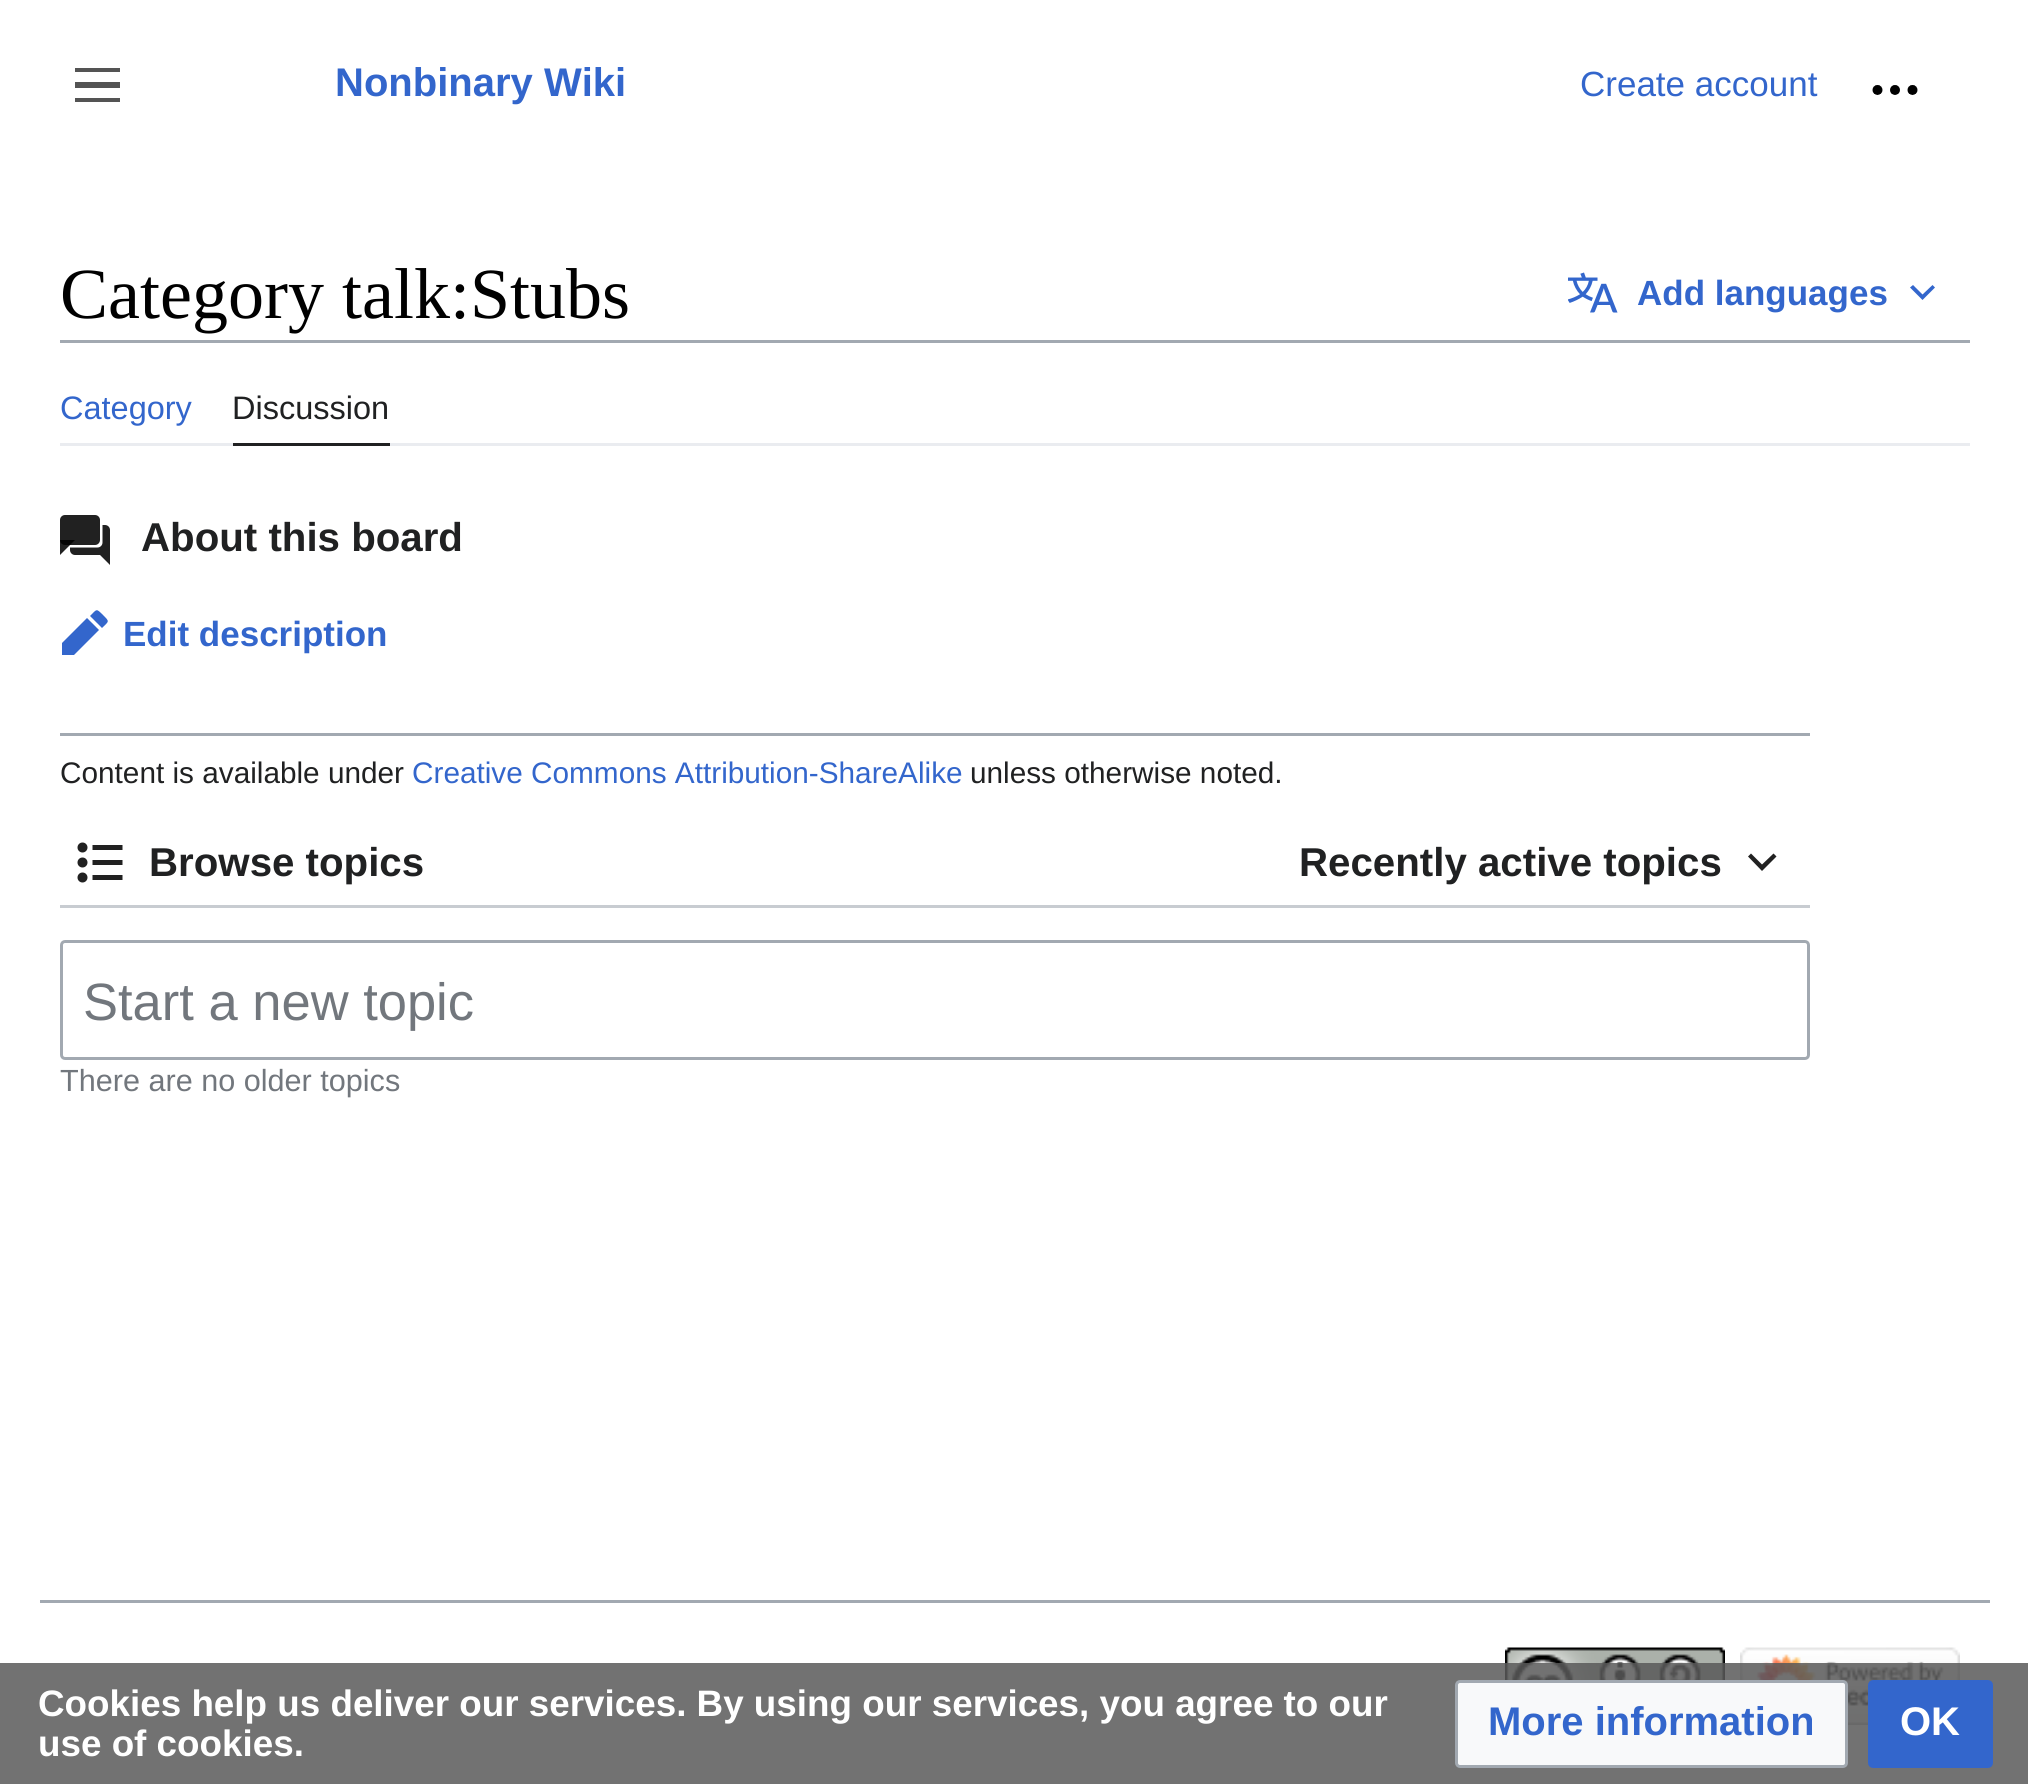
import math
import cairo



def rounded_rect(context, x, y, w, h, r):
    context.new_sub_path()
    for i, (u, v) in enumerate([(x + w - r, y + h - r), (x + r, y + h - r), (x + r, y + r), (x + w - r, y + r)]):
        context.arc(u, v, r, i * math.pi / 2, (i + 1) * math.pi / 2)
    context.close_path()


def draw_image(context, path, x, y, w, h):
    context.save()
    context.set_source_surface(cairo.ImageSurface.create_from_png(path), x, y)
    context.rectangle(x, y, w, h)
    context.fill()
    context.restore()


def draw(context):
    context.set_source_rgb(1, 1, 1)
    context.paint()
    context.set_source_rgb(84 / 255, 84 / 255, 84 / 255)
    context.new_path()
    context.move_to(75, 68)
    context.line_to(75, 72)
    context.line_to(120, 72)
    context.line_to(120, 68)
    context.close_path()
    context.move_to(75, 88)
    context.line_to(120, 88)
    context.line_to(120, 82)
    context.line_to(75, 82)
    context.close_path()
    context.move_to(75, 102)
    context.line_to(120, 102)
    context.line_to(120, 98)
    context.line_to(75, 98)
    context.close_path()
    context.fill()
    draw_image(context, "images/1.png", 1872, 85, 46, 10)
    context.set_source_rgb(162 / 255, 169 / 255, 177 / 255)
    context.rectangle(60, 340, 1910, 3)
    context.fill()
    draw_image(context, "images/2.png", 1568, 272, 50, 41)
    context.set_source_rgb(51 / 255, 102 / 255, 204 / 255)
    context.new_path()
    context.move_to(1935, 287.5)
    context.line_to(1932.5, 285)
    context.line_to(1922.5, 294.5)
    context.line_to(1913, 285)
    context.line_to(1910, 287.5)
    context.line_to(1922.5, 300)
    context.line_to(1935, 287.5)
    context.fill()
    context.set_source_rgb(234 / 255, 236 / 255, 240 / 255)
    context.rectangle(60, 443, 1910, 3)
    context.fill()
    context.set_source_rgb(32 / 255, 33 / 255, 34 / 255)
    context.rectangle(233, 443, 157, 3)
    context.fill()
    draw_image(context, "images/3.png", 60, 515, 50, 50)
    context.set_source_rgb(51 / 255, 102 / 255, 204 / 255)
    context.new_path()
    context.move_to(102, 628)
    context.curve_to(109, 621, 110, 622, 103, 615)
    context.curve_to(96, 608, 97, 609, 90, 616)
    context.close_path()
    context.move_to(62, 643)
    context.line_to(62, 655)
    context.line_to(74, 655)
    context.line_to(99, 630)
    context.line_to(87, 618)
    context.close_path()
    context.fill()
    context.set_source_rgb(162 / 255, 169 / 255, 177 / 255)
    context.rectangle(60, 733, 1750, 3)
    context.fill()
    context.set_source_rgb(200 / 255, 204 / 255, 209 / 255)
    context.rectangle(60, 905, 1750, 3)
    context.fill()
    draw_image(context, "images/4.png", 77, 842, 46, 41)
    context.set_source_rgb(33 / 255, 33 / 255, 33 / 255)
    context.new_path()
    context.move_to(1773.5, 853.5)
    context.line_to(1762, 864.5)
    context.line_to(1751, 853.5)
    context.line_to(1748, 856.5)
    context.line_to(1762, 871)
    context.line_to(1776.5, 856.5)
    context.close_path()
    context.fill()
    rounded_rect(context, 61.5, 941.5, 1747, 117, 3.5)
    context.set_source_rgb(162 / 255, 169 / 255, 177 / 255)
    context.set_line_width(3)
    context.stroke()
    draw_image(context, "images/5.png", 1505, 1647, 220, 33)
    draw_image(context, "images/6.png", 1740, 1647, 220, 78)
    context.set_source_rgba(90 / 255, 90 / 255, 90 / 255, 0.85)
    context.rectangle(0, 1663, 2028, 121)
    context.fill()
    context.set_source_rgb(248 / 255, 249 / 255, 250 / 255)
    rounded_rect(context, 1456.5, 1681.5, 390, 85, 3.5)
    context.fill_preserve()
    context.set_source_rgb(162 / 255, 169 / 255, 177 / 255)
    context.stroke()
    context.set_source_rgb(51 / 255, 102 / 255, 204 / 255)
    rounded_rect(context, 1869.5, 1681.5, 122, 85, 3.5)
    context.fill_preserve()
    context.stroke()
    context.set_source_rgb(162 / 255, 169 / 255, 177 / 255)
    context.rectangle(40, 1600, 1950, 3)
    context.fill()
    context.select_font_face("Liberation Sans", cairo.FontSlant.NORMAL, cairo.FontWeight.BOLD)
    context.set_font_size(40)
    context.set_source_rgb(51 / 255, 102 / 255, 204 / 255)
    context.move_to(335, 96)
    context.show_text("Nonbinary Wiki")
    context.select_font_face("Liberation Sans")
    context.set_font_size(35)
    context.move_to(1580, 96)
    context.show_text("Create account")
    context.select_font_face("Liberation Serif")
    context.set_font_size(72)
    context.set_source_rgb(0, 0, 0)
    context.move_to(60, 318)
    context.show_text("Category talk:Stubs")
    context.select_font_face("Liberation Sans", cairo.FontSlant.NORMAL, cairo.FontWeight.BOLD)
    context.set_font_size(35)
    context.set_source_rgb(51 / 255, 102 / 255, 204 / 255)
    context.move_to(1637, 305)
    context.show_text("Add languages")
    context.select_font_face("Liberation Sans")
    context.set_font_size(32.5)
    context.move_to(60, 419)
    context.show_text("Category")
    context.set_source_rgb(32 / 255, 33 / 255, 34 / 255)
    context.move_to(232, 419)
    context.show_text("Discussion")
    context.select_font_face("Liberation Sans", cairo.FontSlant.NORMAL, cairo.FontWeight.BOLD)
    context.set_font_size(40.25)
    context.move_to(141, 551)
    context.show_text("About this board")
    context.set_font_size(35)
    context.set_source_rgb(51 / 255, 102 / 255, 204 / 255)
    context.move_to(123, 646)
    context.show_text("Edit description")
    context.select_font_face("Liberation Sans")
    context.set_font_size(29.75)
    context.set_source_rgb(32 / 255, 33 / 255, 34 / 255)
    context.move_to(60, 783)
    context.show_text("Content is available under")
    context.set_source_rgb(51 / 255, 102 / 255, 204 / 255)
    context.move_to(412, 783)
    context.show_text("Creative Commons Attribution-ShareAlike")
    context.set_source_rgb(32 / 255, 33 / 255, 34 / 255)
    context.move_to(970, 783)
    context.show_text("unless otherwise noted.")
    context.select_font_face("Liberation Sans", cairo.FontSlant.NORMAL, cairo.FontWeight.BOLD)
    context.set_font_size(40.25)
    context.move_to(149, 876)
    context.show_text("Browse topics")
    context.move_to(1299, 876)
    context.show_text("Recently active topics")
    context.select_font_face("Liberation Sans")
    context.set_font_size(52.5)
    context.set_source_rgb(114 / 255, 119 / 255, 125 / 255)
    context.move_to(83, 1020)
    context.show_text("Start a new topic")
    context.set_font_size(30.6)
    context.move_to(60, 1091)
    context.show_text("There are no older topics")
    context.select_font_face("Liberation Sans", cairo.FontSlant.NORMAL, cairo.FontWeight.BOLD)
    context.set_font_size(36.8)
    context.set_source_rgb(1, 1, 1)
    context.move_to(38, 1716)
    context.show_text("Cookies help us deliver our services. By using our services, you agree to our")
    context.move_to(38, 1756)
    context.show_text("use of cookies.")
    context.set_font_size(40)
    context.set_source_rgb(51 / 255, 102 / 255, 204 / 255)
    context.move_to(1488, 1735)
    context.show_text("More information")
    context.set_source_rgb(1, 1, 1)
    context.move_to(1900, 1735)
    context.show_text("OK")


surface = cairo.ImageSurface(cairo.Format.RGB24, 2028, 1784)
context = cairo.Context(surface)
options = cairo.FontOptions()
options.set_hint_metrics(cairo.HintMetrics.OFF)
options.set_hint_style(cairo.HintStyle.NONE)
context.set_font_options(options)
context.set_miter_limit(4)
draw(context)
surface.write_to_png("out.png")
